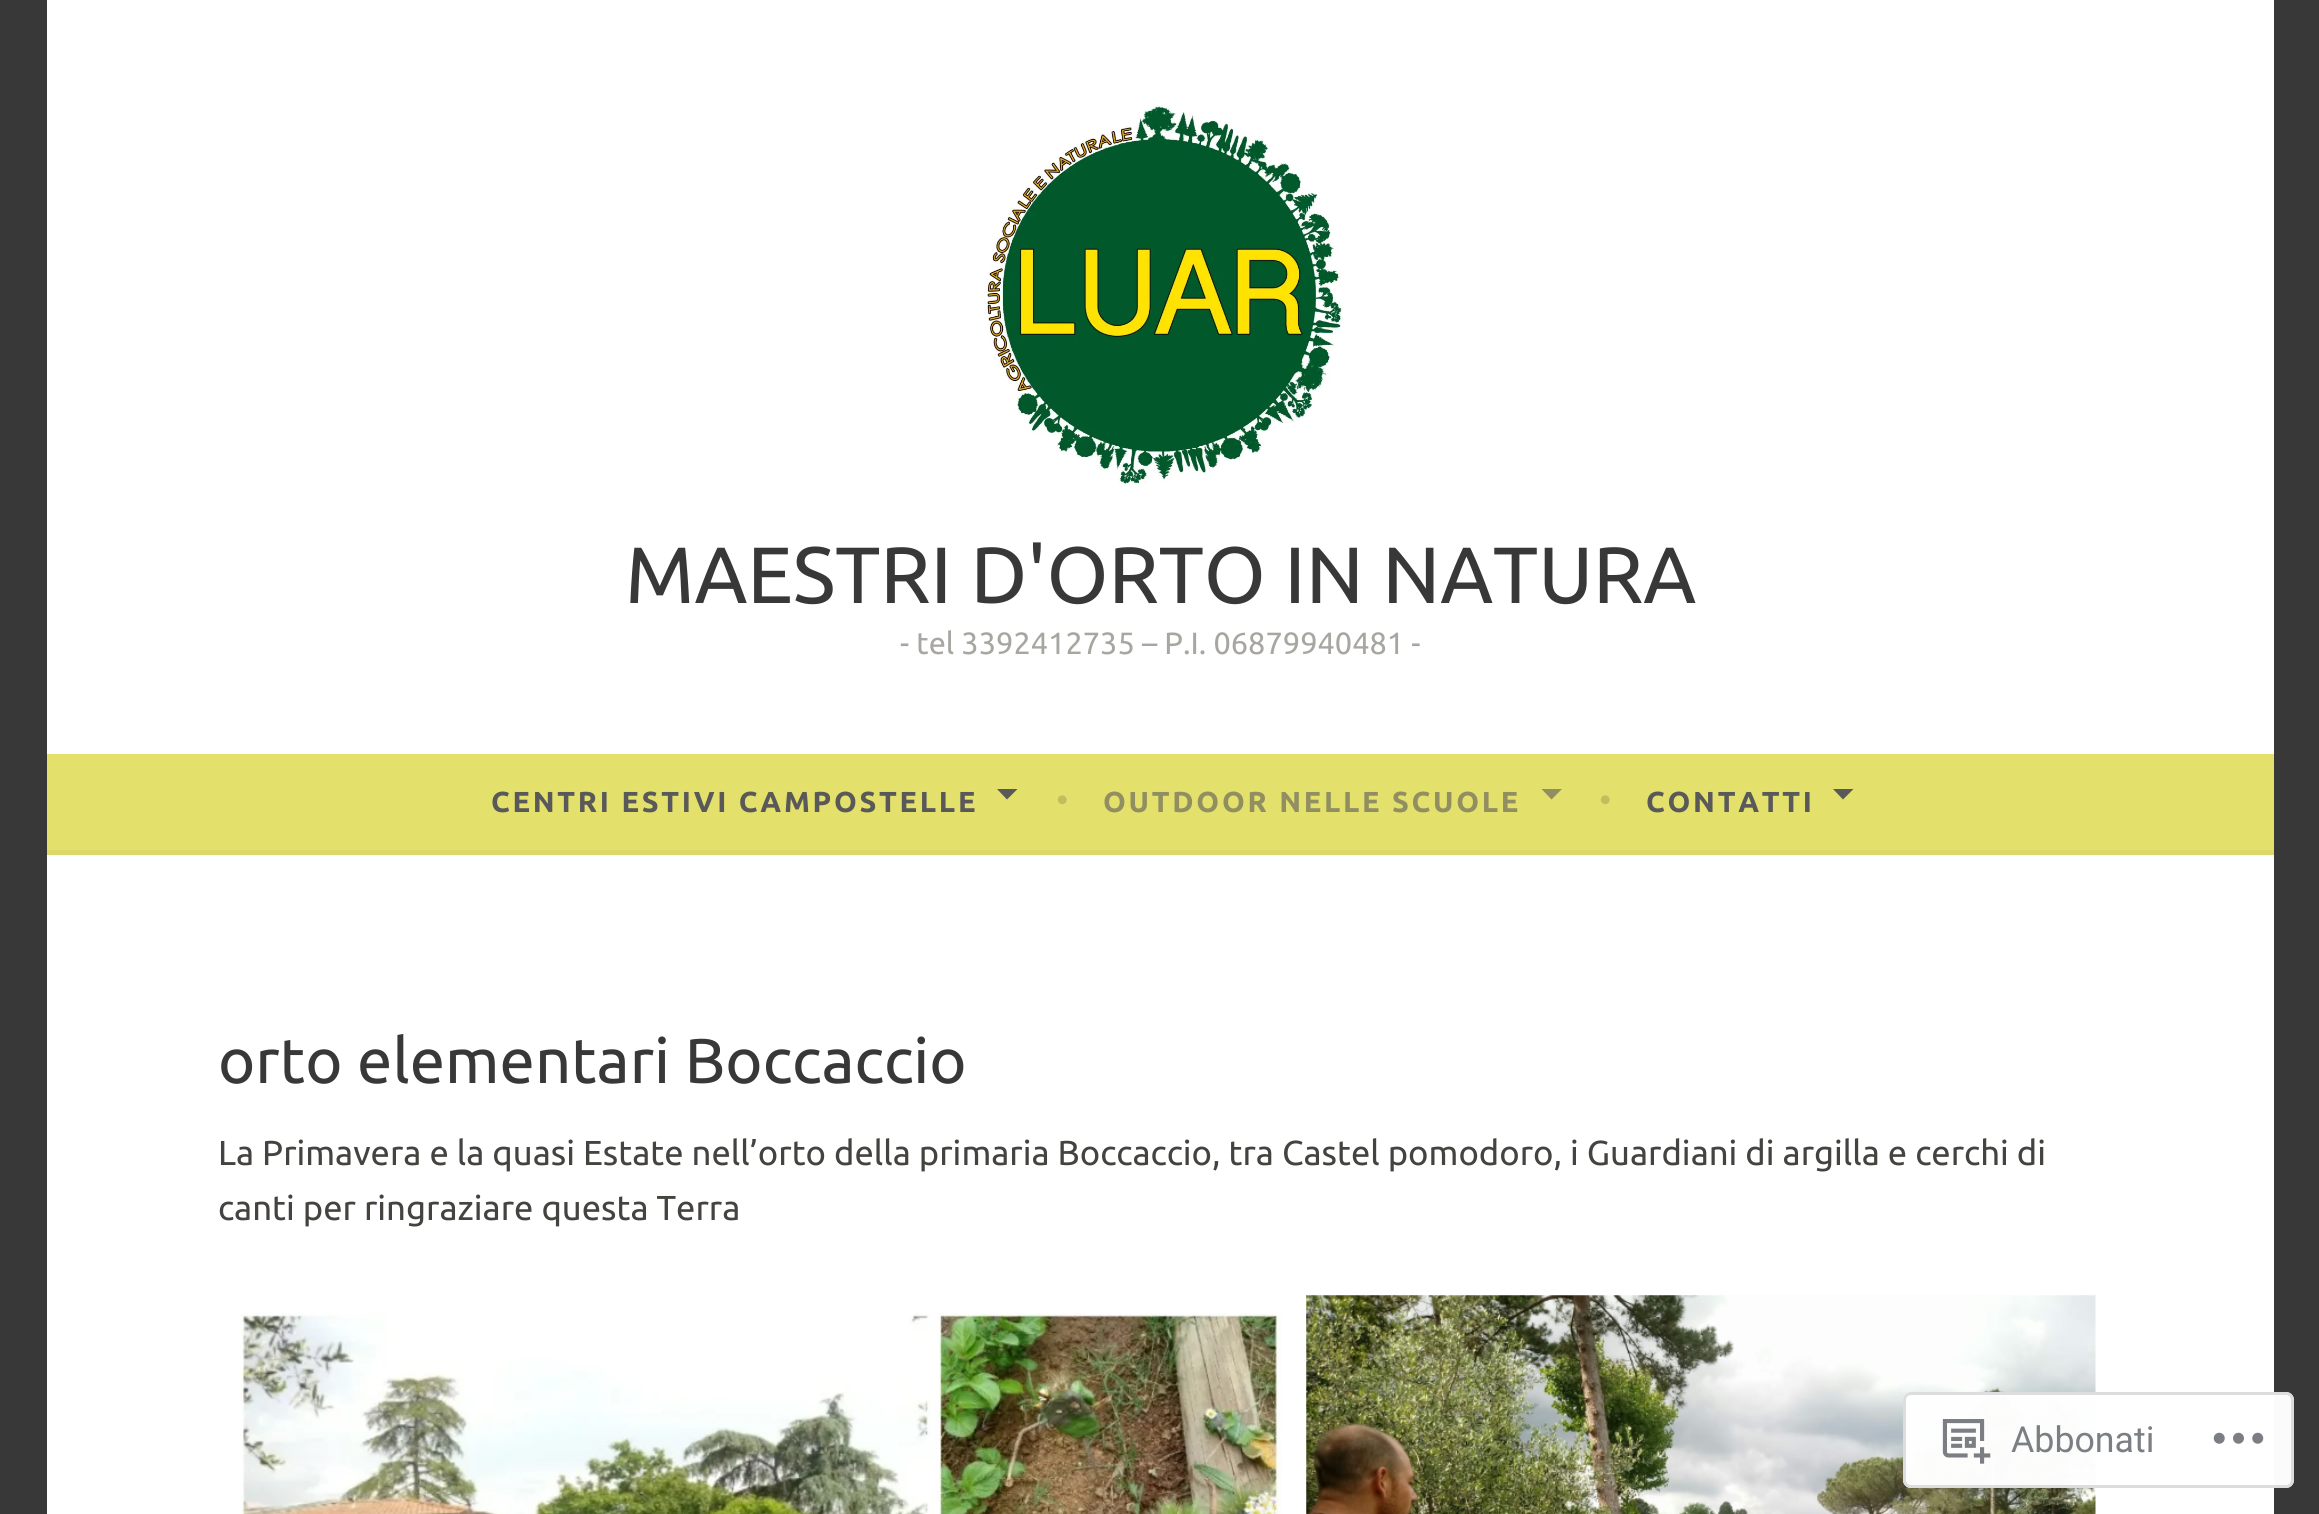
import math
import cairo



def draw_spaced(context, x, y, s, letter, word):
    context.move_to(x, y)
    for ch in s:
        context.show_text(ch)
        context.rel_move_to(letter + word * (ch == ' '), 0)


def rounded_rect(context, x, y, w, h, r):
    context.new_sub_path()
    for i, (u, v) in enumerate([(x + w - r, y + h - r), (x + r, y + h - r), (x + r, y + r), (x + w - r, y + r)]):
        context.arc(u, v, r, i * math.pi / 2, (i + 1) * math.pi / 2)
    context.close_path()


def draw_image(context, path, x, y, w, h):
    context.save()
    context.set_source_surface(cairo.ImageSurface.create_from_png(path), x, y)
    context.rectangle(x, y, w, h)
    context.fill()
    context.restore()


def draw(context):
    context.set_source_rgb(56 / 255, 56 / 255, 56 / 255)
    context.paint()
    context.set_source_rgb(1, 1, 1)
    context.rectangle(47, 0, 2227, 754)
    context.fill()
    draw_image(context, "images/1.png", 985, 104, 358, 381)
    context.set_source_rgb(228 / 255, 224 / 255, 108 / 255)
    context.rectangle(47, 754, 2227, 96)
    context.fill()
    context.set_source_rgb(221 / 255, 217 / 255, 105 / 255)
    context.rectangle(47, 850, 2227, 5)
    context.fill()
    context.set_source_rgb(89 / 255, 89 / 255, 89 / 255)
    context.new_path()
    context.move_to(997, 789)
    context.line_to(1017.5, 789)
    context.line_to(1007, 799.5)
    context.close_path()
    context.fill()
    context.set_source_rgb(145 / 255, 143 / 255, 97 / 255)
    context.new_path()
    context.move_to(1541.5, 789)
    context.line_to(1562, 789)
    context.line_to(1551.5, 799.5)
    context.close_path()
    context.fill()
    context.set_source_rgb(89 / 255, 89 / 255, 89 / 255)
    context.new_path()
    context.move_to(1833, 789)
    context.line_to(1853.5, 789)
    context.line_to(1843, 799.5)
    context.close_path()
    context.fill()
    context.set_source_rgb(1, 1, 1)
    context.rectangle(47, 855, 2227, 659)
    context.fill()
    draw_image(context, "images/2.png", 239, 1313, 1043, 201)
    draw_image(context, "images/3.png", 1306, 1295, 790, 219)
    context.set_source_rgba(1, 1, 1, 0.98)
    rounded_rect(context, 1903, 1392, 391, 96, 8)
    context.fill()
    rounded_rect(context, 1904.5, 1393.5, 388, 93, 6.5)
    context.set_source_rgba(220 / 255, 220 / 255, 222 / 255, 0.98)
    context.set_line_width(3)
    context.stroke()
    draw_image(context, "images/4.png", 1942, 1419, 49, 45)
    draw_image(context, "images/5.png", 2213, 1432, 51, 12)
    context.select_font_face("Ubuntu")
    context.set_font_size(79.75)
    context.set_source_rgb(56 / 255, 56 / 255, 56 / 255)
    context.move_to(625, 603)
    context.show_text("MAESTRI D'ORTO IN NATURA")
    context.set_font_size(30.75)
    context.set_source_rgb(168 / 255, 166 / 255, 161 / 255)
    context.move_to(900, 654)
    context.show_text("- tel 3392412735 – P.I. 06879940481 -")
    context.select_font_face("Ubuntu", cairo.FontSlant.NORMAL, cairo.FontWeight.BOLD)
    context.set_font_size(28.9)
    context.set_source_rgb(89 / 255, 89 / 255, 89 / 255)
    draw_spaced(context, 491, 812, "CENTRI ESTIVI CAMPOSTELLE", 2.75, 0)
    context.select_font_face("Ubuntu")
    context.set_font_size(34.65)
    context.set_source_rgb(194 / 255, 190 / 255, 92 / 255)
    context.move_to(1056, 812)
    context.show_text("•")
    context.select_font_face("Ubuntu", cairo.FontSlant.NORMAL, cairo.FontWeight.BOLD)
    context.set_font_size(28.9)
    context.set_source_rgb(145 / 255, 143 / 255, 97 / 255)
    draw_spaced(context, 1103, 812, "OUTDOOR NELLE SCUOLE", 2.75, 0)
    context.select_font_face("Ubuntu")
    context.set_font_size(34.65)
    context.set_source_rgb(194 / 255, 190 / 255, 92 / 255)
    context.move_to(1599, 812)
    context.show_text("•")
    context.select_font_face("Ubuntu", cairo.FontSlant.NORMAL, cairo.FontWeight.BOLD)
    context.set_font_size(28.9)
    context.set_source_rgb(89 / 255, 89 / 255, 89 / 255)
    draw_spaced(context, 1646, 812, "CONTATTI", 2.75, 0)
    context.select_font_face("Ubuntu")
    context.set_font_size(63.25)
    context.set_source_rgb(56 / 255, 56 / 255, 56 / 255)
    context.move_to(218, 1083)
    context.show_text("orto elementari Boccaccio")
    context.set_font_size(34.65)
    context.set_source_rgb(68 / 255, 67 / 255, 64 / 255)
    context.move_to(218, 1165)
    context.show_text("La Primavera e la quasi Estate nell’orto della primaria Boccaccio, tra Castel pomodoro, i Guardiani di argilla e cerchi di")
    context.move_to(218, 1220)
    context.show_text("canti per ringraziare questa Terra")
    context.select_font_face("Roboto")
    context.set_font_size(35.75)
    context.set_source_rgb(123 / 255, 127 / 255, 132 / 255)
    context.move_to(2011, 1452)
    context.show_text("Abbonati")


surface = cairo.ImageSurface(cairo.Format.RGB24, 2319, 1514)
context = cairo.Context(surface)
options = cairo.FontOptions()
options.set_hint_metrics(cairo.HintMetrics.OFF)
options.set_hint_style(cairo.HintStyle.NONE)
context.set_font_options(options)
context.set_miter_limit(4)
draw(context)
surface.write_to_png("out.png")
